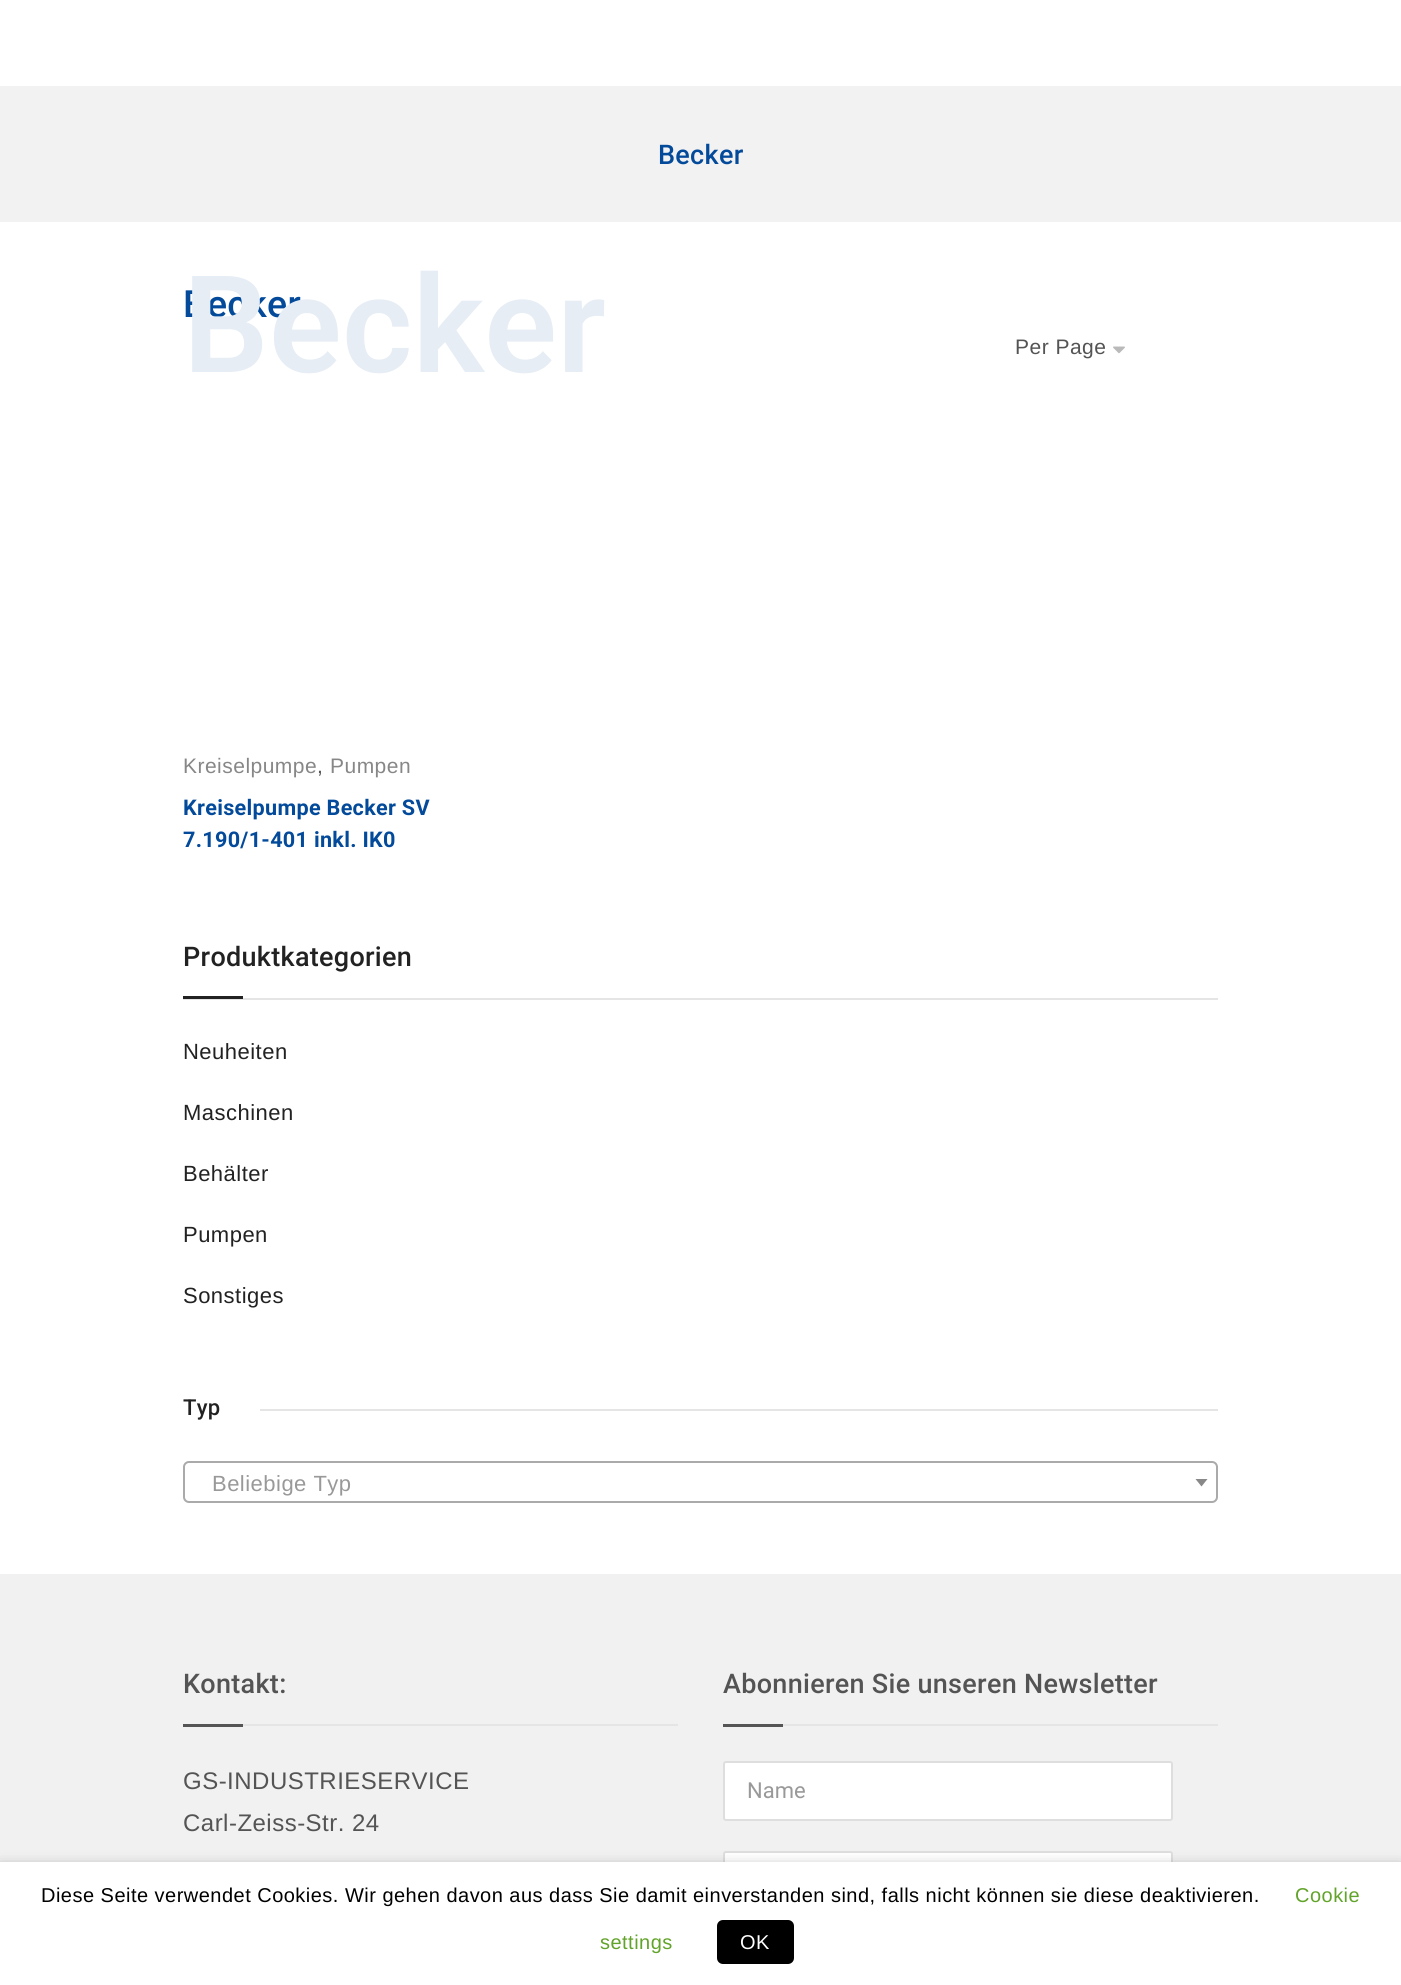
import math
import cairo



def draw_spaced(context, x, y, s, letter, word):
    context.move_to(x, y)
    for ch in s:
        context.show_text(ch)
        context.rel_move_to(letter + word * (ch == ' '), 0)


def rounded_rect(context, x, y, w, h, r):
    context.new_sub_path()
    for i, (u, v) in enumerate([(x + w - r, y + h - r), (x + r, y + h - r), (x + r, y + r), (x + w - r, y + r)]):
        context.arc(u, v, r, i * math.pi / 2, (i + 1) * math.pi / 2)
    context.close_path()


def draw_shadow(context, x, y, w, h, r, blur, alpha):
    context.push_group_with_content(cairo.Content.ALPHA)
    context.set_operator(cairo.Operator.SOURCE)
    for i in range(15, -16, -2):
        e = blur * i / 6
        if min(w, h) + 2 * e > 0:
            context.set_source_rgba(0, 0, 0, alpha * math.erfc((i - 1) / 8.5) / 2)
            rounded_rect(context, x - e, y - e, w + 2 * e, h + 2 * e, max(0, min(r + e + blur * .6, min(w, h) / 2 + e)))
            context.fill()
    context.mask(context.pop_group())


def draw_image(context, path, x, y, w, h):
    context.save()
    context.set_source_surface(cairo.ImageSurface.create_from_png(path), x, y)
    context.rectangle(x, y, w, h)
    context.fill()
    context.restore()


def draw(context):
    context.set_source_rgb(1, 1, 1)
    context.paint()
    context.set_source_rgb(242 / 255, 242 / 255, 242 / 255)
    context.rectangle(0, 86, 1401, 136)
    context.fill()
    draw_image(context, "images/1.png", 1113, 346, 12, 8)
    context.set_source_rgb(229 / 255, 229 / 255, 229 / 255)
    context.rectangle(183, 998, 1035, 2)
    context.fill()
    context.set_source_rgb(34 / 255, 34 / 255, 34 / 255)
    context.rectangle(183, 996, 60, 3)
    context.fill()
    context.set_source_rgb(229 / 255, 229 / 255, 229 / 255)
    context.rectangle(260, 1409, 958, 2)
    context.fill()
    rounded_rect(context, 184, 1462, 1033, 40, 5)
    context.set_source_rgb(170 / 255, 170 / 255, 170 / 255)
    context.stroke()
    context.set_source_rgb(136 / 255, 136 / 255, 136 / 255)
    context.new_path()
    context.move_to(1195.5, 1479)
    context.line_to(1207.5, 1479)
    context.line_to(1201.5, 1486.5)
    context.close_path()
    context.fill()
    context.set_source_rgb(241 / 255, 241 / 255, 241 / 255)
    context.rectangle(0, 1574, 1401, 288)
    context.fill()
    context.set_source_rgb(85 / 255, 85 / 255, 85 / 255)
    context.rectangle(183, 1724, 60, 3)
    context.fill()
    context.set_source_rgb(229 / 255, 229 / 255, 229 / 255)
    context.rectangle(243, 1724, 435, 2)
    context.fill()
    context.set_source_rgb(85 / 255, 85 / 255, 85 / 255)
    context.rectangle(723, 1724, 60, 3)
    context.fill()
    context.set_source_rgb(229 / 255, 229 / 255, 229 / 255)
    context.rectangle(783, 1724, 435, 2)
    context.fill()
    context.set_source_rgb(1, 1, 1)
    rounded_rect(context, 724, 1762, 448, 58, 2)
    context.fill_preserve()
    context.set_source_rgb(222 / 255, 222 / 255, 222 / 255)
    context.stroke()
    context.set_source_rgb(1, 1, 1)
    rounded_rect(context, 724, 1852, 448, 58, 2)
    context.fill_preserve()
    context.set_source_rgb(222 / 255, 222 / 255, 222 / 255)
    context.stroke()
    context.set_source_rgb(0, 0, 0)
    draw_shadow(context, 0, 1869, 1401, 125, 0, 7.5, 0.5)
    context.set_source_rgb(1, 1, 1)
    context.rectangle(0, 1862, 1401, 123)
    context.fill()
    context.set_source_rgb(0, 0, 0)
    rounded_rect(context, 717, 1920, 77, 44, 6)
    context.fill()
    context.select_font_face("Roboto Medium")
    context.set_font_size(27)
    context.set_source_rgb(3 / 255, 74 / 255, 154 / 255)
    draw_spaced(context, 658, 164, "Becker", 0.3, 0)
    context.set_font_size(37.5)
    draw_spaced(context, 183, 317, "Becker", 0.3, 0)
    context.select_font_face("Roboto SemiBold")
    context.set_font_size(135)
    context.set_source_rgb(230 / 255, 237 / 255, 245 / 255)
    draw_spaced(context, 183, 372, "Becker", 0.3, 0)
    context.select_font_face("Liberation Sans")
    context.set_font_size(21)
    context.set_source_rgb(84 / 255, 84 / 255, 84 / 255)
    draw_spaced(context, 1015, 354, "Per Page", 0.48, 0)
    context.set_source_rgb(135 / 255, 135 / 255, 135 / 255)
    draw_spaced(context, 183, 773, "Kreiselpumpe", 0.48, 0)
    context.set_source_rgb(84 / 255, 84 / 255, 84 / 255)
    draw_spaced(context, 317, 773, ",", 0.48, 0)
    context.set_source_rgb(135 / 255, 135 / 255, 135 / 255)
    draw_spaced(context, 330, 773, "Pumpen", 0.48, 0)
    context.select_font_face("Roboto", cairo.FontSlant.NORMAL, cairo.FontWeight.BOLD)
    context.set_font_size(21.6)
    context.set_source_rgb(3 / 255, 74 / 255, 154 / 255)
    draw_spaced(context, 183, 815, "Kreiselpumpe Becker SV", 0.3, 0)
    draw_spaced(context, 183, 847, "7.190/1-401 inkl. IK0", 0.3, 0)
    context.select_font_face("Roboto Medium")
    context.set_font_size(27)
    context.set_source_rgb(34 / 255, 34 / 255, 34 / 255)
    draw_spaced(context, 183, 966, "Produktkategorien", 0.3, 0)
    context.select_font_face("Liberation Sans")
    context.set_font_size(22)
    draw_spaced(context, 183, 1059, "Neuheiten", 0.48, 0)
    draw_spaced(context, 183, 1120, "Maschinen", 0.48, 0)
    draw_spaced(context, 183, 1181, "Behälter", 0.48, 0)
    draw_spaced(context, 183, 1242, "Pumpen", 0.48, 0)
    draw_spaced(context, 183, 1303, "Sonstiges", 0.48, 0)
    context.select_font_face("Roboto Medium")
    draw_spaced(context, 183, 1415, "Typ", 0.3, 0)
    context.select_font_face("Liberation Sans")
    context.set_source_rgb(153 / 255, 153 / 255, 153 / 255)
    draw_spaced(context, 212, 1491, "Beliebige Typ", 0.48, 0)
    context.select_font_face("Roboto Medium")
    context.set_font_size(27)
    context.set_source_rgb(84 / 255, 84 / 255, 84 / 255)
    draw_spaced(context, 183, 1693, "Kontakt:", 0.3, 0)
    context.select_font_face("Liberation Sans")
    context.set_font_size(24)
    draw_spaced(context, 183, 1789, "GS-INDUSTRIESERVICE", 0.48, 0)
    draw_spaced(context, 183, 1831, "Carl-Zeiss-Str. 24", 0.48, 0)
    context.select_font_face("Roboto Medium")
    context.set_font_size(27)
    draw_spaced(context, 723, 1693, "Abonnieren Sie unseren Newsletter", 0.3, 0)
    context.select_font_face("Roboto")
    context.set_font_size(22)
    context.set_source_rgb(153 / 255, 153 / 255, 153 / 255)
    context.move_to(747, 1798)
    context.show_text("Name")
    context.select_font_face("Liberation Sans")
    context.set_font_size(20)
    context.set_source_rgb(0, 0, 0)
    draw_spaced(context, 41, 1902, "Diese Seite verwendet Cookies. Wir gehen davon aus dass Sie damit einverstanden sind, falls nicht können sie diese deaktivieren.", 0.48, 0)
    context.set_source_rgb(98 / 255, 163 / 255, 41 / 255)
    draw_spaced(context, 1295, 1902, "Cookie", 0.48, 0)
    draw_spaced(context, 600, 1949, "settings", 0.48, 0)
    context.set_source_rgb(1, 1, 1)
    draw_spaced(context, 740, 1949, "OK", 0.48, 0)


surface = cairo.ImageSurface(cairo.Format.RGB24, 1401, 1985)
context = cairo.Context(surface)
options = cairo.FontOptions()
options.set_hint_metrics(cairo.HintMetrics.OFF)
options.set_hint_style(cairo.HintStyle.NONE)
context.set_font_options(options)
context.set_miter_limit(4)
draw(context)
surface.write_to_png("out.png")
